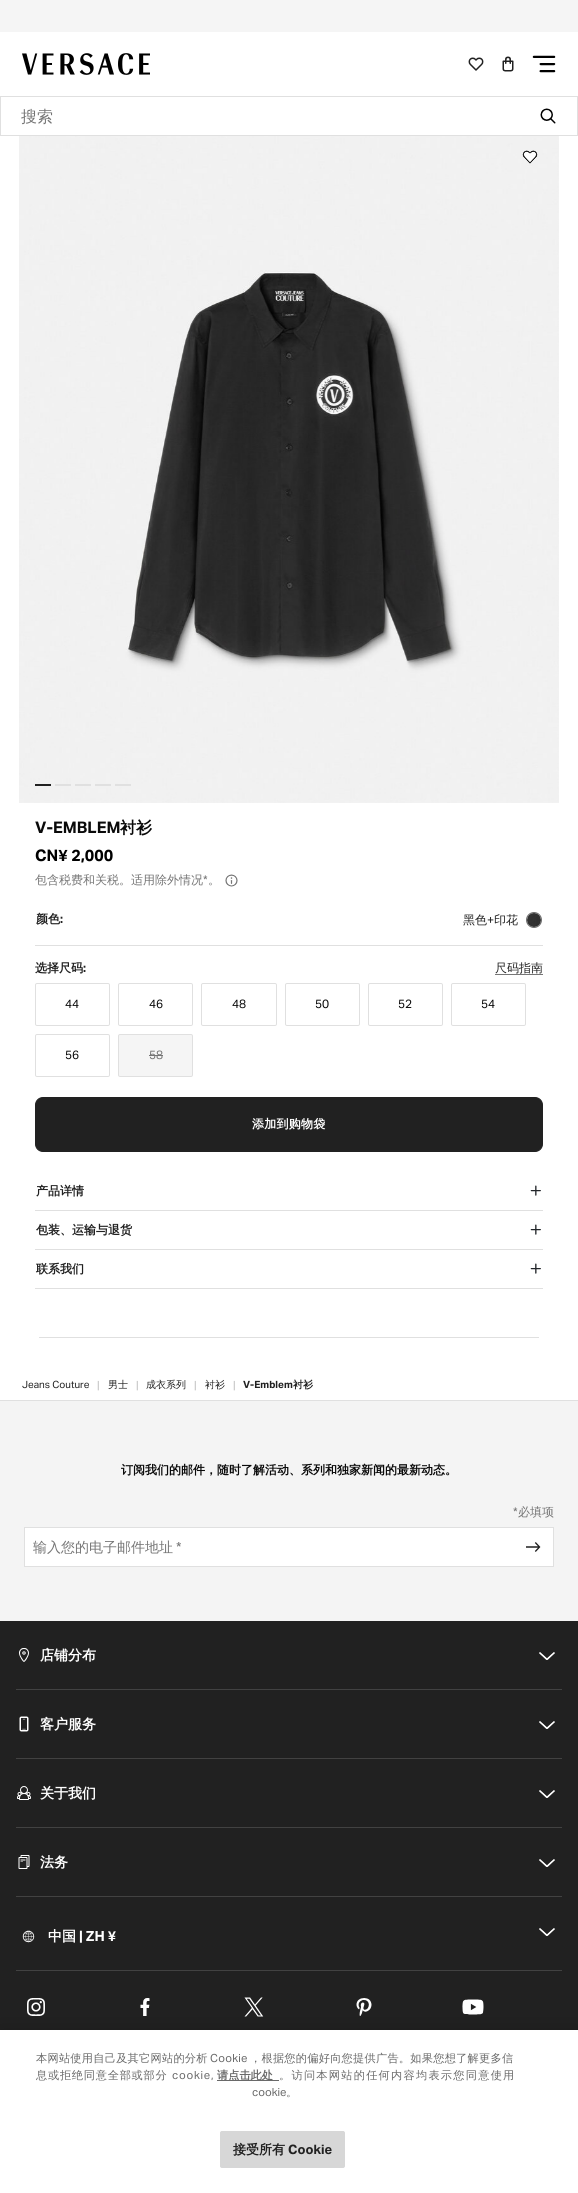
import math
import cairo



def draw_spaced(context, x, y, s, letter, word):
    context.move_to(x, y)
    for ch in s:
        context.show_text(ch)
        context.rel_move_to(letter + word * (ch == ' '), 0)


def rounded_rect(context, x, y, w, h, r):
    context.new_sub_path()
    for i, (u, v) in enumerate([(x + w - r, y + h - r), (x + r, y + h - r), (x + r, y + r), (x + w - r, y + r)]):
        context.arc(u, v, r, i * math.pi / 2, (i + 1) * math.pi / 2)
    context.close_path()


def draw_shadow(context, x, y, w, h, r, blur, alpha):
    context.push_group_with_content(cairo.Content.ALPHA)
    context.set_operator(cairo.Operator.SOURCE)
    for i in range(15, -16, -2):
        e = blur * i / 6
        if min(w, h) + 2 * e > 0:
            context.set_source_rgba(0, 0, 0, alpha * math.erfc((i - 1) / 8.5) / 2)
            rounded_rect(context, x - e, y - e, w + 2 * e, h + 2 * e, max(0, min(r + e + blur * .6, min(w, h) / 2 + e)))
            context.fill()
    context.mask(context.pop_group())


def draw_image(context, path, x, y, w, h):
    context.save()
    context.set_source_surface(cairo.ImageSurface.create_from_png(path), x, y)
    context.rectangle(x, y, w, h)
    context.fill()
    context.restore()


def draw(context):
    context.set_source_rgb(1, 1, 1)
    context.paint()
    context.set_source_rgb(245 / 255, 245 / 255, 245 / 255)
    context.rectangle(0, 0, 578, 32)
    context.fill()
    draw_image(context, "images/1.png", 22, 53, 128, 22)
    draw_image(context, "images/2.png", 468, 57, 16, 14)
    draw_image(context, "images/3.png", 502, 56, 12, 16)
    draw_image(context, "images/4.png", 532, 55, 24, 18)
    context.rectangle(0.5, 96.5, 577, 39)
    context.set_source_rgb(224 / 255, 224 / 255, 224 / 255)
    context.set_line_width(1)
    context.stroke()
    draw_image(context, "images/5.png", 540, 108, 16, 16)
    draw_image(context, "images/6.png", 19, 136, 540, 667)
    context.set_source_rgb(33 / 255, 33 / 255, 33 / 255)
    context.rectangle(35, 784, 16, 2)
    context.fill()
    context.set_source_rgb(224 / 255, 224 / 255, 224 / 255)
    context.rectangle(55, 784, 16, 2)
    context.fill()
    context.rectangle(75, 784, 16, 2)
    context.fill()
    context.rectangle(95, 784, 16, 2)
    context.fill()
    context.rectangle(115, 784, 16, 2)
    context.fill()
    draw_image(context, "images/7.png", 522, 150, 16, 13)
    draw_image(context, "images/8.png", 522, 150, 15, 14)
    draw_image(context, "images/9.png", 225, 874, 13, 13)
    context.rectangle(35, 945, 508, 1)
    context.fill()
    context.arc(534, 920, 7.5, 0, 2 * math.pi)
    context.set_source_rgb(110 / 255, 110 / 255, 110 / 255)
    context.stroke()
    draw_image(context, "images/10.png", 527, 913, 14, 14)
    context.set_source_rgb(118 / 255, 118 / 255, 118 / 255)
    context.rectangle(495, 974, 48, 1)
    context.fill()
    rounded_rect(context, 35.5, 983.5, 74, 42, 1.5)
    context.set_source_rgb(224 / 255, 224 / 255, 224 / 255)
    context.stroke()
    rounded_rect(context, 118.5, 983.5, 74, 42, 1.5)
    context.stroke()
    rounded_rect(context, 201.5, 983.5, 75, 42, 1.5)
    context.stroke()
    rounded_rect(context, 285.5, 983.5, 74, 42, 1.5)
    context.stroke()
    rounded_rect(context, 368.5, 983.5, 74, 42, 1.5)
    context.stroke()
    rounded_rect(context, 451.5, 983.5, 74, 42, 1.5)
    context.stroke()
    rounded_rect(context, 35.5, 1034.5, 74, 42, 1.5)
    context.stroke()
    context.set_source_rgb(245 / 255, 245 / 255, 245 / 255)
    rounded_rect(context, 118.5, 1034.5, 74, 42, 1.5)
    context.fill_preserve()
    context.set_source_rgb(224 / 255, 224 / 255, 224 / 255)
    context.stroke()
    context.set_source_rgb(117 / 255, 117 / 255, 117 / 255)
    context.rectangle(149, 1055, 14, 1)
    context.fill()
    context.set_source_rgb(33 / 255, 33 / 255, 33 / 255)
    rounded_rect(context, 35.5, 1097.5, 507, 54, 7.5)
    context.fill_preserve()
    context.stroke()
    draw_image(context, "images/11.png", 530, 1185, 11, 11)
    context.set_source_rgb(224 / 255, 224 / 255, 224 / 255)
    context.rectangle(35, 1210, 508, 1)
    context.fill()
    draw_image(context, "images/11.png", 530, 1224, 11, 11)
    context.rectangle(35, 1249, 508, 1)
    context.fill()
    draw_image(context, "images/11.png", 530, 1263, 11, 11)
    context.rectangle(35, 1288, 508, 1)
    context.fill()
    context.rectangle(39, 1337, 500, 1)
    context.fill()
    context.set_source_rgb(244 / 255, 244 / 255, 244 / 255)
    context.rectangle(0, 1401, 578, 220)
    context.fill()
    context.set_source_rgb(224 / 255, 224 / 255, 224 / 255)
    context.rectangle(0, 1400, 578, 1)
    context.fill()
    context.set_source_rgb(1, 1, 1)
    context.rectangle(24.5, 1527.5, 529, 39)
    context.fill_preserve()
    context.set_source_rgb(224 / 255, 224 / 255, 224 / 255)
    context.stroke()
    draw_image(context, "images/12.png", 526, 1542, 15, 10)
    context.set_source_rgb(33 / 255, 33 / 255, 33 / 255)
    context.rectangle(0, 1621, 578, 409)
    context.fill()
    context.set_source_rgb(66 / 255, 66 / 255, 66 / 255)
    context.rectangle(16, 1689, 546, 1)
    context.fill()
    draw_image(context, "images/13.png", 19, 1648, 10, 14)
    draw_image(context, "images/14.png", 539, 1652, 16, 8)
    context.rectangle(16, 1758, 546, 1)
    context.fill()
    draw_image(context, "images/15.png", 19, 1716, 10, 16)
    draw_image(context, "images/14.png", 539, 1721, 16, 8)
    context.rectangle(16, 1827, 546, 1)
    context.fill()
    draw_image(context, "images/16.png", 17, 1786, 14, 14)
    draw_image(context, "images/14.png", 539, 1790, 16, 8)
    context.rectangle(16, 1896, 546, 1)
    context.fill()
    draw_image(context, "images/17.png", 18, 1855, 12, 14)
    draw_image(context, "images/14.png", 539, 1859, 16, 8)
    context.rectangle(16, 1970, 546, 1)
    context.fill()
    draw_image(context, "images/18.png", 22, 1930, 13, 13)
    draw_image(context, "images/14.png", 539, 1928, 16, 8)
    draw_image(context, "images/19.png", 27, 1998, 18, 18)
    draw_image(context, "images/20.png", 140, 1998, 10, 18)
    draw_image(context, "images/21.png", 244, 1997, 20, 20)
    draw_image(context, "images/22.png", 356, 1998, 16, 18)
    draw_image(context, "images/23.png", 462, 1999, 22, 16)
    context.set_source_rgb(0, 0, 0)
    draw_shadow(context, 0, 2030, 578, 163, 0, 9, 0.2)
    context.set_source_rgb(1, 1, 1)
    context.rectangle(0, 2030, 578, 163)
    context.fill()
    context.set_source_rgb(105 / 255, 105 / 255, 105 / 255)
    context.rectangle(217, 2080, 62, 1)
    context.fill()
    context.set_source_rgb(215 / 255, 215 / 255, 215 / 255)
    rounded_rect(context, 220.5, 2131.5, 124, 36, 1.5)
    context.fill_preserve()
    context.stroke()
    context.select_font_face("WenQuanYi Zen Hei Medium")
    context.set_font_size(16)
    context.set_source_rgb(117 / 255, 117 / 255, 117 / 255)
    context.move_to(21, 122)
    context.show_text("搜索")
    context.select_font_face("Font", cairo.FontSlant.NORMAL, cairo.FontWeight.BOLD)
    context.set_source_rgb(10 / 255, 10 / 255, 10 / 255)
    context.move_to(35, 833)
    context.show_text("V-EMBLEM")
    context.select_font_face("WenQuanYi Zen Hei", cairo.FontSlant.NORMAL, cairo.FontWeight.BOLD)
    context.move_to(120, 833)
    context.show_text("衬衫")
    context.select_font_face("Font", cairo.FontSlant.NORMAL, cairo.FontWeight.BOLD)
    context.set_source_rgb(0, 0, 0)
    context.move_to(35, 861)
    context.show_text("CN¥ 2,000")
    context.select_font_face("WenQuanYi Zen Hei Medium")
    context.set_font_size(12)
    context.set_source_rgb(117 / 255, 117 / 255, 117 / 255)
    context.move_to(35, 884)
    context.show_text("包含税费和关税。适用除外情况")
    context.select_font_face("Font")
    context.move_to(203, 884)
    context.show_text("*")
    context.select_font_face("WenQuanYi Zen Hei Medium")
    context.move_to(208, 884)
    context.show_text("。")
    context.select_font_face("WenQuanYi Zen Hei", cairo.FontSlant.NORMAL, cairo.FontWeight.BOLD)
    context.set_source_rgb(33 / 255, 33 / 255, 33 / 255)
    context.move_to(36, 923)
    context.show_text("颜色")
    context.select_font_face("Font", cairo.FontSlant.NORMAL, cairo.FontWeight.BOLD)
    context.move_to(60, 923)
    context.show_text(":")
    context.select_font_face("WenQuanYi Zen Hei Medium")
    context.move_to(463, 924)
    context.show_text("黑色")
    context.select_font_face("Font")
    context.move_to(487, 924)
    context.show_text("+")
    context.select_font_face("WenQuanYi Zen Hei Medium")
    context.move_to(494, 924)
    context.show_text("印花")
    context.select_font_face("WenQuanYi Zen Hei", cairo.FontSlant.NORMAL, cairo.FontWeight.BOLD)
    context.move_to(35, 972)
    context.show_text("选择尺码")
    context.select_font_face("Font", cairo.FontSlant.NORMAL, cairo.FontWeight.BOLD)
    context.move_to(83, 972)
    context.show_text(":")
    context.select_font_face("WenQuanYi Zen Hei Medium")
    context.move_to(495, 972)
    context.show_text("尺码指南")
    context.select_font_face("Font")
    context.set_source_rgb(10 / 255, 10 / 255, 10 / 255)
    context.move_to(65, 1008)
    context.show_text("44")
    context.move_to(149, 1008)
    context.show_text("46")
    context.move_to(232, 1008)
    context.show_text("48")
    context.move_to(315, 1008)
    context.show_text("50")
    context.move_to(398, 1008)
    context.show_text("52")
    context.move_to(481, 1008)
    context.show_text("54")
    context.move_to(65, 1059)
    context.show_text("56")
    context.set_source_rgb(117 / 255, 117 / 255, 117 / 255)
    context.move_to(149, 1059)
    context.show_text("58")
    context.select_font_face("WenQuanYi Zen Hei", cairo.FontSlant.NORMAL, cairo.FontWeight.BOLD)
    context.set_source_rgb(1, 1, 1)
    draw_spaced(context, 252, 1128, "添加到购物袋", 0.25, 0)
    context.set_source_rgb(33 / 255, 33 / 255, 33 / 255)
    context.move_to(36, 1195)
    context.show_text("产品详情")
    context.move_to(36, 1234)
    context.show_text("包装、运输与退货")
    context.move_to(36, 1273)
    context.show_text("联系我们")
    context.select_font_face("Font")
    context.set_font_size(10)
    context.move_to(22, 1388)
    context.show_text("Jeans Couture")
    context.set_font_size(11)
    context.set_source_rgb(189 / 255, 189 / 255, 189 / 255)
    context.move_to(97, 1389)
    context.show_text("|")
    context.select_font_face("WenQuanYi Zen Hei Medium")
    context.set_font_size(10)
    context.set_source_rgb(33 / 255, 33 / 255, 33 / 255)
    context.move_to(108, 1388)
    context.show_text("男士")
    context.select_font_face("Font")
    context.set_font_size(11)
    context.set_source_rgb(189 / 255, 189 / 255, 189 / 255)
    context.move_to(136, 1389)
    context.show_text("|")
    context.select_font_face("WenQuanYi Zen Hei Medium")
    context.set_font_size(10)
    context.set_source_rgb(33 / 255, 33 / 255, 33 / 255)
    context.move_to(146, 1388)
    context.show_text("成衣系列")
    context.select_font_face("Font")
    context.set_font_size(11)
    context.set_source_rgb(189 / 255, 189 / 255, 189 / 255)
    context.move_to(194, 1389)
    context.show_text("|")
    context.select_font_face("WenQuanYi Zen Hei Medium")
    context.set_font_size(10)
    context.set_source_rgb(33 / 255, 33 / 255, 33 / 255)
    context.move_to(205, 1388)
    context.show_text("衬衫")
    context.select_font_face("Font")
    context.set_font_size(11)
    context.set_source_rgb(189 / 255, 189 / 255, 189 / 255)
    context.move_to(233, 1389)
    context.show_text("|")
    context.select_font_face("Font", cairo.FontSlant.NORMAL, cairo.FontWeight.BOLD)
    context.set_font_size(10)
    context.set_source_rgb(33 / 255, 33 / 255, 33 / 255)
    context.move_to(243, 1388)
    context.show_text("V-Emblem")
    context.select_font_face("WenQuanYi Zen Hei", cairo.FontSlant.NORMAL, cairo.FontWeight.BOLD)
    context.move_to(293, 1388)
    context.show_text("衬衫")
    context.set_font_size(12)
    context.set_source_rgb(10 / 255, 10 / 255, 10 / 255)
    context.move_to(121, 1474)
    context.show_text("订阅我们的邮件，随时了解活动、系列和独家新闻的最新动态。")
    context.select_font_face("Font")
    context.set_source_rgb(117 / 255, 117 / 255, 117 / 255)
    context.move_to(513, 1516)
    context.show_text("*")
    context.select_font_face("WenQuanYi Zen Hei Medium")
    context.move_to(518, 1516)
    context.show_text("必填项")
    context.set_font_size(14)
    context.move_to(33, 1552)
    context.show_text("输入您的电子邮件地址")
    context.select_font_face("Font")
    context.move_to(176, 1552)
    context.show_text("*")
    context.select_font_face("WenQuanYi Zen Hei", cairo.FontSlant.NORMAL, cairo.FontWeight.BOLD)
    context.set_source_rgb(1, 1, 1)
    context.move_to(40, 1660)
    context.show_text("店铺分布")
    context.move_to(40, 1729)
    context.show_text("客户服务")
    context.move_to(40, 1798)
    context.show_text("关于我们")
    context.move_to(40, 1867)
    context.show_text("法务")
    context.move_to(48, 1941)
    context.show_text("中国")
    context.select_font_face("Font", cairo.FontSlant.NORMAL, cairo.FontWeight.BOLD)
    context.move_to(79, 1941)
    context.show_text("| ZH ¥")
    context.select_font_face("WenQuanYi Zen Hei Medium")
    context.set_font_size(11.2)
    context.set_source_rgb(105 / 255, 105 / 255, 105 / 255)
    draw_spaced(context, 36, 2062, "本网站使用自己及其它网站的分析", 0.25, 0)
    context.select_font_face("Font")
    draw_spaced(context, 210, 2062, "Cookie", 0.25, 0)
    context.select_font_face("WenQuanYi Zen Hei Medium")
    draw_spaced(context, 250, 2062, "，根据您的偏好向您提供广告。如果您想了解更多信", 0.25, 0)
    draw_spaced(context, 36, 2079, "息或拒绝同意全部或部分", 0.75, 0)
    context.select_font_face("Font")
    draw_spaced(context, 172, 2079, "cookie,", 0.75, 0)
    context.select_font_face("WenQuanYi Zen Hei", cairo.FontSlant.NORMAL, cairo.FontWeight.BOLD)
    context.move_to(217, 2079)
    context.show_text("请点击此处")
    context.select_font_face("WenQuanYi Zen Hei Medium")
    draw_spaced(context, 279, 2079, "。访问本网站的任何内容均表示您同意使用", 1.25, 0)
    context.select_font_face("Font")
    context.move_to(252, 2096)
    context.show_text("cookie")
    context.select_font_face("WenQuanYi Zen Hei Medium")
    context.move_to(286, 2096)
    context.show_text("。")
    context.select_font_face("WenQuanYi Zen Hei", cairo.FontSlant.NORMAL, cairo.FontWeight.BOLD)
    context.set_font_size(13)
    context.set_source_rgb(33 / 255, 33 / 255, 33 / 255)
    context.move_to(233, 2154)
    context.show_text("接受所有")
    context.select_font_face("Font", cairo.FontSlant.NORMAL, cairo.FontWeight.BOLD)
    context.move_to(288, 2154)
    context.show_text("Cookie")


surface = cairo.ImageSurface(cairo.Format.RGB24, 578, 2193)
context = cairo.Context(surface)
options = cairo.FontOptions()
options.set_hint_metrics(cairo.HintMetrics.OFF)
options.set_hint_style(cairo.HintStyle.NONE)
context.set_font_options(options)
context.set_miter_limit(4)
draw(context)
surface.write_to_png("out.png")
